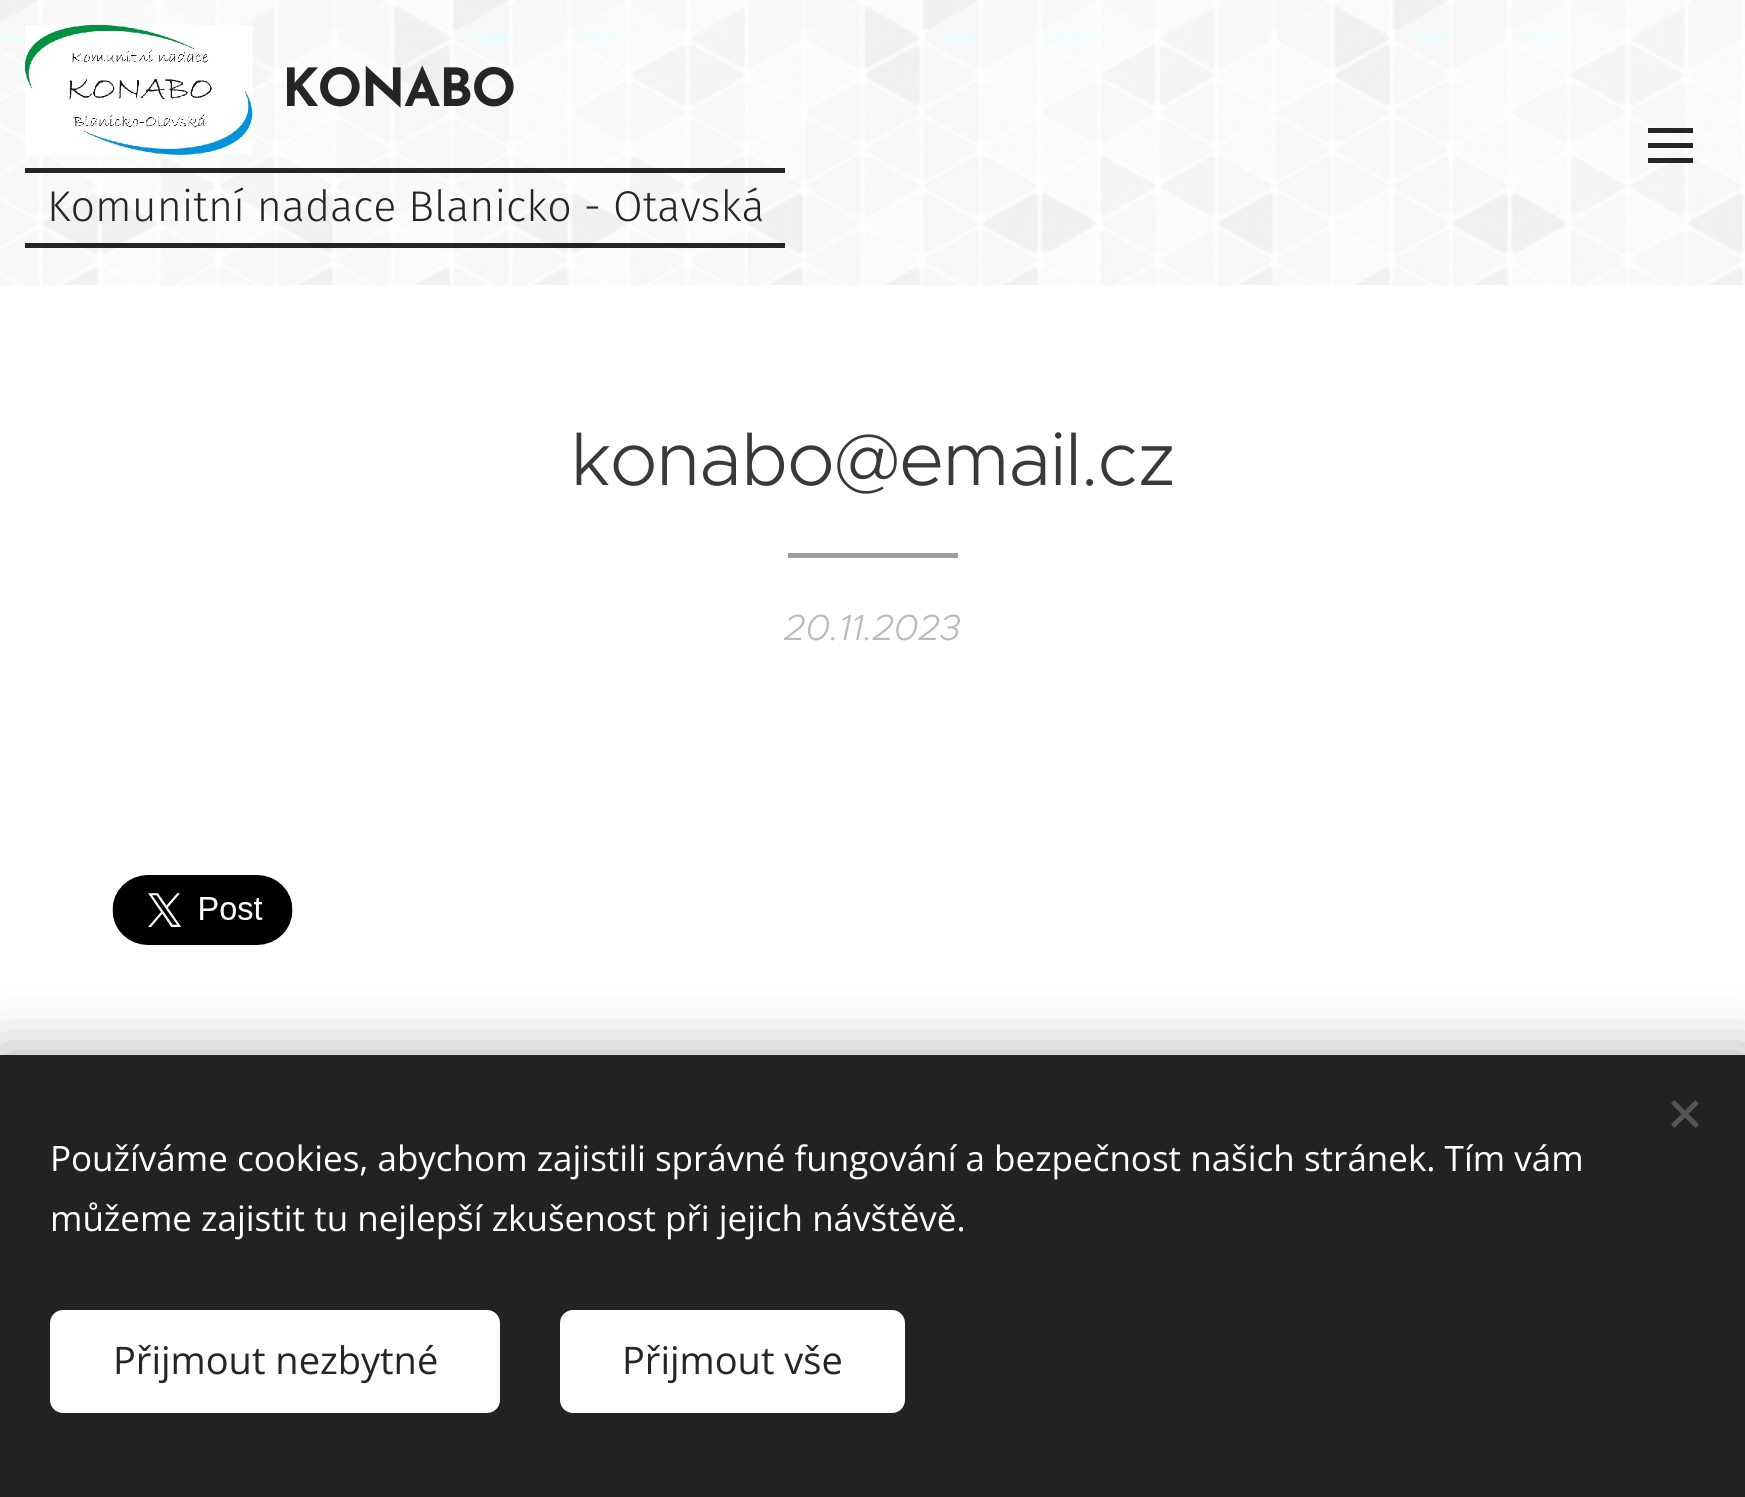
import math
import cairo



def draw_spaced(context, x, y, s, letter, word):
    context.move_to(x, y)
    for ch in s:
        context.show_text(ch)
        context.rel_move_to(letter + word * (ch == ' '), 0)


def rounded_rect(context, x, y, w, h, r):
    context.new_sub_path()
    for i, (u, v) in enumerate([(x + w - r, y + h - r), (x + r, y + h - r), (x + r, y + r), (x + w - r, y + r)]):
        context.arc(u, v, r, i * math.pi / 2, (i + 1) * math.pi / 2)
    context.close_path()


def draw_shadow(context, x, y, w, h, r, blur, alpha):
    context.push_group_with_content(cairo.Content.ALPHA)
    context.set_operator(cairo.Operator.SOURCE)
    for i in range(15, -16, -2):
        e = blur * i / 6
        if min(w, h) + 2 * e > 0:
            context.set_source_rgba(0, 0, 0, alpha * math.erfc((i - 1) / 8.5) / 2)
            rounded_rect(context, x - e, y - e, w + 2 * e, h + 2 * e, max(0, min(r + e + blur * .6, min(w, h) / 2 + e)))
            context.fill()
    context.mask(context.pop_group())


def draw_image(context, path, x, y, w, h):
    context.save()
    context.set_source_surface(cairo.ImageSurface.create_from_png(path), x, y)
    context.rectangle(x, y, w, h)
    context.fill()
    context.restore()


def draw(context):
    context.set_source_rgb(1, 1, 1)
    context.paint()
    draw_image(context, "images/1.png", 0, 0, 1745, 285)
    draw_image(context, "images/2.png", 25, 25, 228, 130)
    context.set_source_rgba(0, 0, 0, 0.85)
    context.rectangle(25, 168, 760, 5)
    context.fill()
    context.rectangle(25, 243, 760, 5)
    context.fill()
    context.rectangle(1648, 143, 45, 5)
    context.fill()
    context.rectangle(1648, 128, 45, 5)
    context.fill()
    context.rectangle(1648, 158, 45, 5)
    context.fill()
    context.set_source_rgb(157 / 255, 157 / 255, 157 / 255)
    context.rectangle(788, 553, 170, 5)
    context.fill()
    draw_image(context, "images/3.png", 112, 875, 181, 70)
    context.set_source_rgb(0, 0, 0)
    draw_shadow(context, 0, 1055, 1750, 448, 0, 31, 0.33)
    context.set_source_rgb(34 / 255, 34 / 255, 34 / 255)
    context.rectangle(0, 1055, 1745, 442)
    context.fill()
    context.set_source_rgb(85 / 255, 85 / 255, 85 / 255)
    context.new_path()
    context.move_to(1671, 1124.5)
    context.line_to(1695.5, 1100)
    context.line_to(1699, 1103.5)
    context.line_to(1674.5, 1128)
    context.close_path()
    context.fill()
    context.new_path()
    context.move_to(1674.5, 1100)
    context.line_to(1699, 1124.5)
    context.line_to(1695.5, 1128)
    context.line_to(1671, 1103.5)
    context.close_path()
    context.fill()
    context.set_source_rgb(1, 1, 1)
    rounded_rect(context, 50, 1310, 450, 103, 13)
    context.fill()
    rounded_rect(context, 560, 1310, 345, 103, 13)
    context.fill()
    context.select_font_face("Josefin Sans", cairo.FontSlant.NORMAL, cairo.FontWeight.BOLD)
    context.set_font_size(52.5)
    context.set_source_rgb(37 / 255, 37 / 255, 37 / 255)
    draw_spaced(context, 282, 106, "KONABO", -1.5, 0)
    context.select_font_face("Fira Sans Light")
    context.set_font_size(43)
    context.move_to(47, 221)
    context.show_text("Komunitní nadace Blanicko - Otavská")
    context.select_font_face("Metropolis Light")
    context.set_font_size(75)
    context.set_source_rgb(57 / 255, 57 / 255, 57 / 255)
    draw_spaced(context, 571, 485, "konabo@email.cz", -0.75, 0)
    context.select_font_face("Metropolis Light", cairo.FontSlant.ITALIC)
    context.set_font_size(36.5)
    context.set_source_rgb(186 / 255, 186 / 255, 186 / 255)
    context.move_to(784, 640)
    context.show_text("20.11.2023")
    context.select_font_face("Open Sans")
    context.set_font_size(35)
    context.set_source_rgb(1, 1, 1)
    context.move_to(50, 1171)
    context.show_text("Používáme cookies, abychom zajistili správné fungování a bezpečnost našich stránek. Tím vám")
    context.move_to(50, 1231)
    context.show_text("můžeme zajistit tu nejlepší zkušenost při jejich návštěvě.")
    context.set_font_size(38)
    context.set_source_rgb(37 / 255, 37 / 255, 37 / 255)
    context.move_to(113, 1374)
    context.show_text("Přijmout nezbytné")
    context.move_to(622, 1374)
    context.show_text("Přijmout vše")


surface = cairo.ImageSurface(cairo.Format.RGB24, 1745, 1497)
context = cairo.Context(surface)
options = cairo.FontOptions()
options.set_hint_metrics(cairo.HintMetrics.OFF)
options.set_hint_style(cairo.HintStyle.NONE)
context.set_font_options(options)
context.set_miter_limit(4)
draw(context)
surface.write_to_png("out.png")
